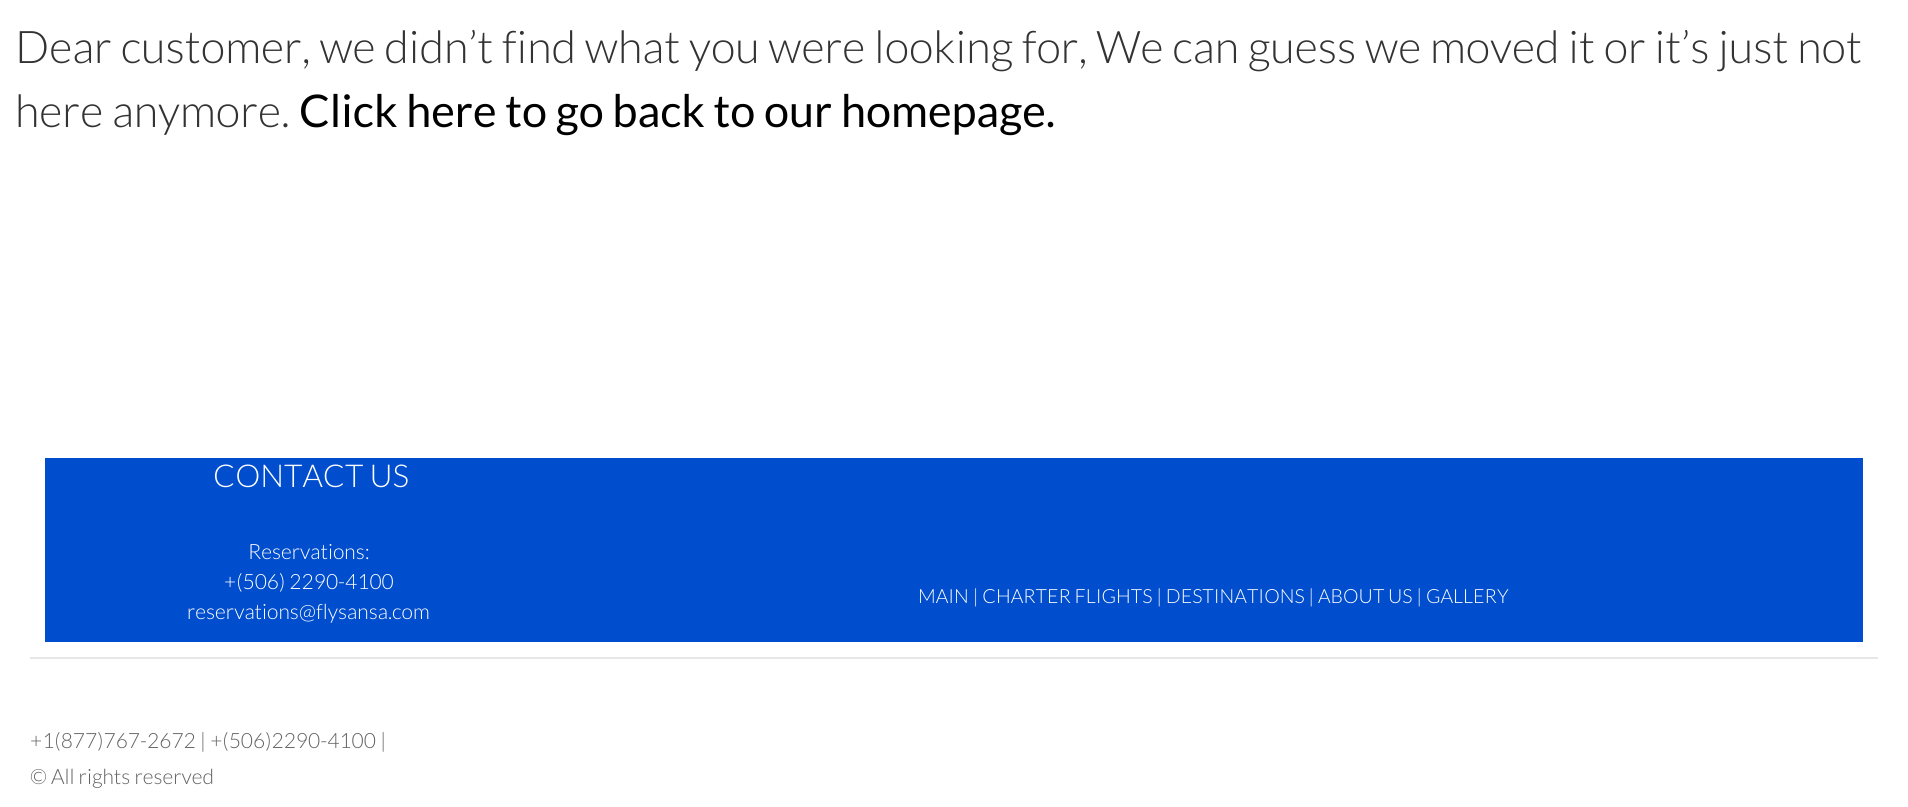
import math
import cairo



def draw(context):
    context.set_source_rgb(1, 1, 1)
    context.paint()
    context.set_source_rgb(0, 78 / 255, 205 / 255)
    context.rectangle(45, 458, 1818, 184)
    context.fill()
    context.set_source_rgb(230 / 255, 230 / 255, 230 / 255)
    context.rectangle(30, 657, 1848, 2)
    context.fill()
    context.select_font_face("Lato Light")
    context.set_font_size(45)
    context.set_source_rgb(51 / 255, 51 / 255, 51 / 255)
    context.move_to(15, 63)
    context.show_text("Dear customer, we didn’t find what you were looking for, We can guess we moved it or it’s just not")
    context.move_to(15, 127)
    context.show_text("here anymore.")
    context.select_font_face("Lato")
    context.set_source_rgb(0, 0, 0)
    context.move_to(299, 127)
    context.show_text("Click here to go back to our homepage.")
    context.select_font_face("Lato Light")
    context.set_font_size(31.5)
    context.set_source_rgb(1, 1, 1)
    context.move_to(213, 487)
    context.show_text("CONTACT US")
    context.set_font_size(21)
    context.move_to(248, 559)
    context.show_text("Reservations:")
    context.move_to(224, 589)
    context.show_text("+(506) 2290-4100")
    context.move_to(187, 619)
    context.show_text("reservations@flysansa.com")
    context.set_font_size(19.5)
    context.move_to(918, 603)
    context.show_text("MAIN | CHARTER FLIGHTS | DESTINATIONS | ABOUT US | GALLERY")
    context.set_font_size(21)
    context.set_source_rgb(97 / 255, 97 / 255, 97 / 255)
    context.move_to(30, 748)
    context.show_text("+1(877)767-2672 | +(506)2290-4100 |")
    context.move_to(30, 784)
    context.show_text("© All rights reserved")


surface = cairo.ImageSurface(cairo.Format.RGB24, 1908, 807)
context = cairo.Context(surface)
options = cairo.FontOptions()
options.set_hint_metrics(cairo.HintMetrics.OFF)
options.set_hint_style(cairo.HintStyle.NONE)
context.set_font_options(options)
context.set_miter_limit(4)
draw(context)
surface.write_to_png("out.png")
